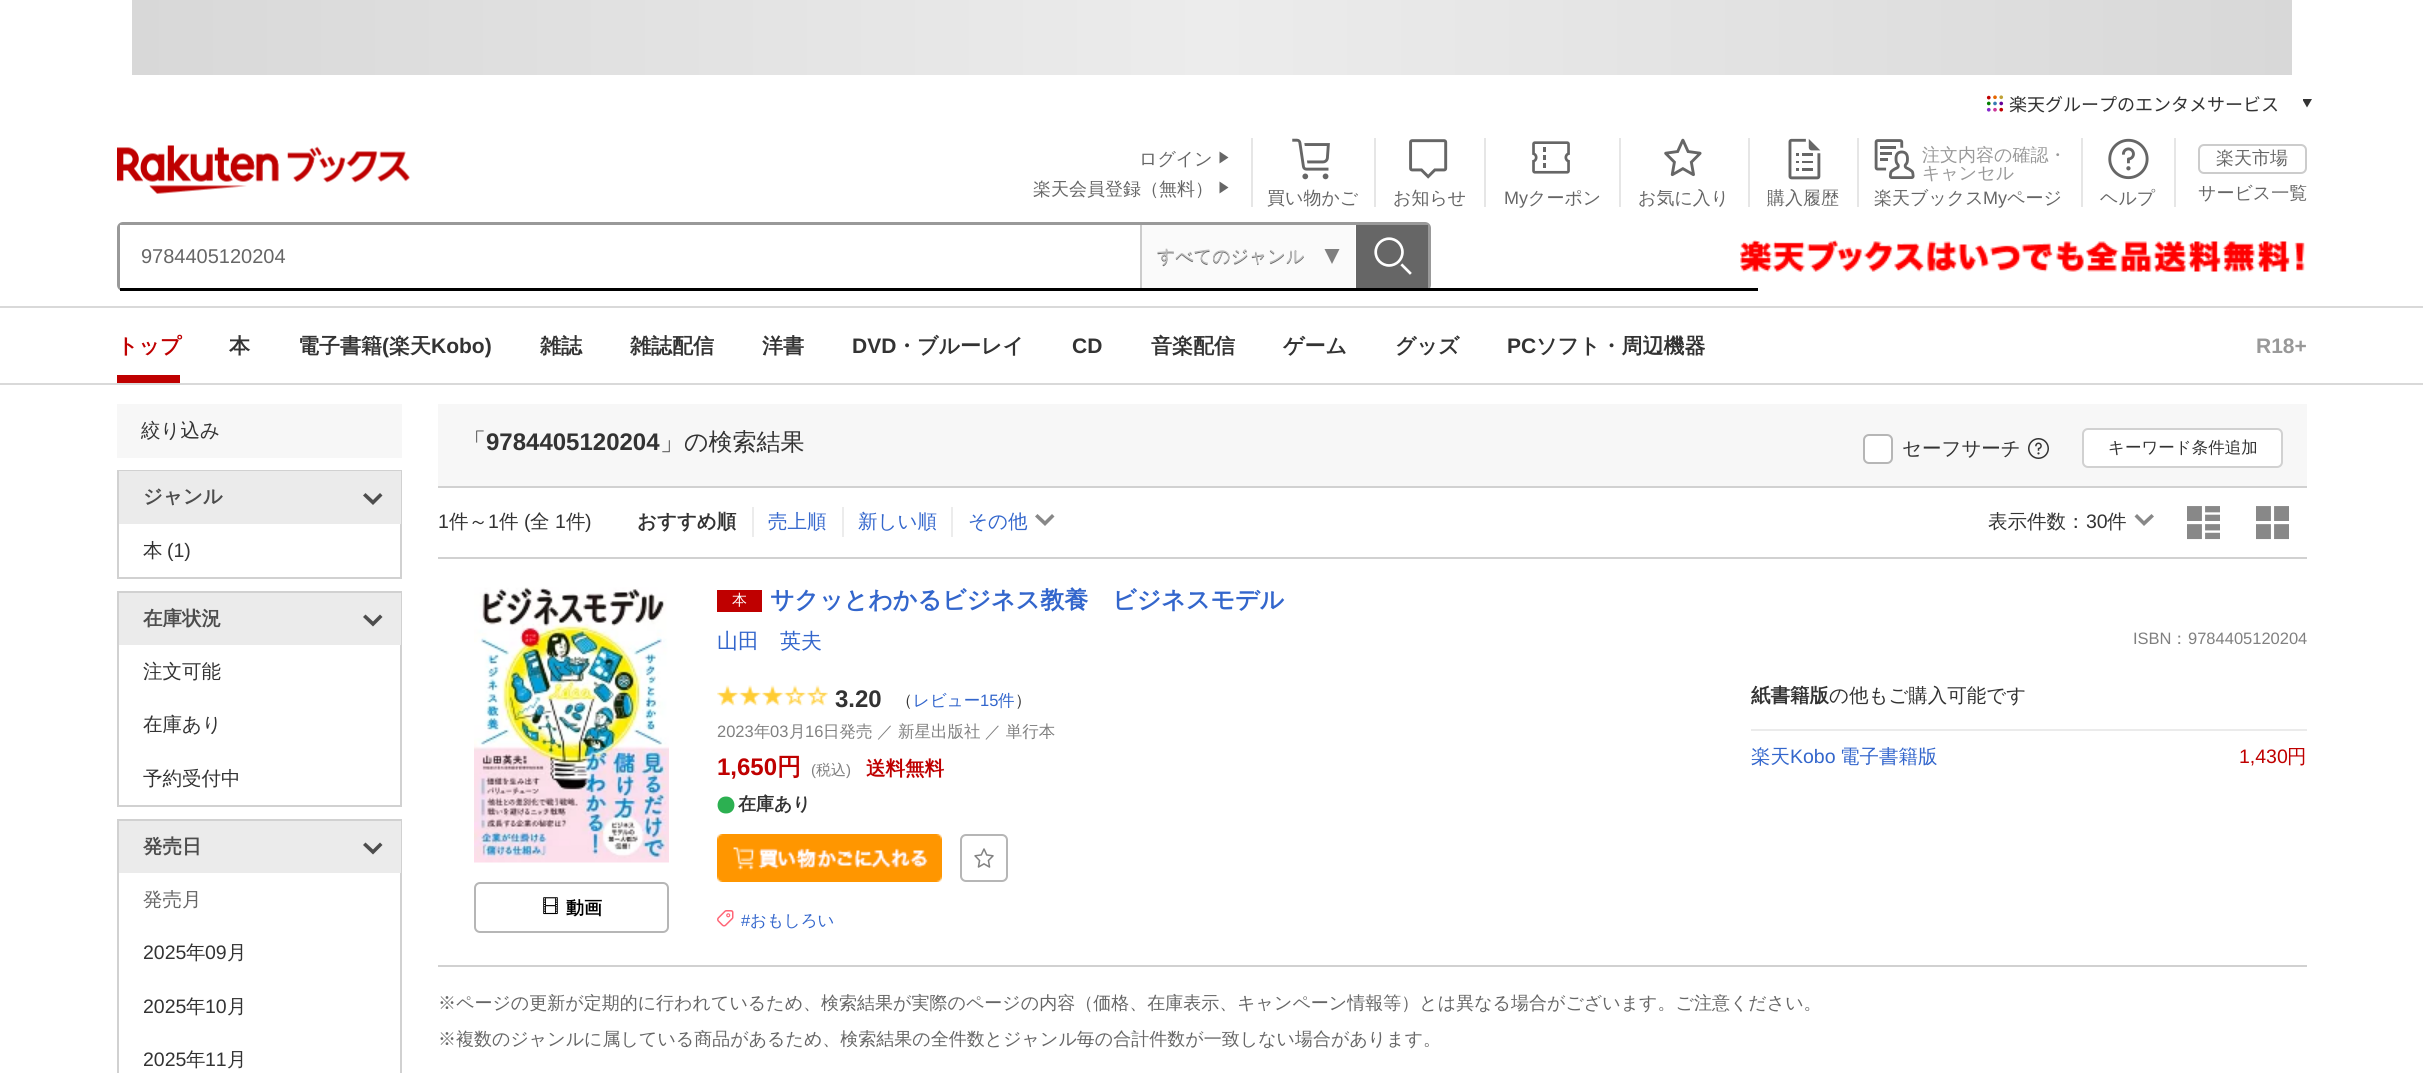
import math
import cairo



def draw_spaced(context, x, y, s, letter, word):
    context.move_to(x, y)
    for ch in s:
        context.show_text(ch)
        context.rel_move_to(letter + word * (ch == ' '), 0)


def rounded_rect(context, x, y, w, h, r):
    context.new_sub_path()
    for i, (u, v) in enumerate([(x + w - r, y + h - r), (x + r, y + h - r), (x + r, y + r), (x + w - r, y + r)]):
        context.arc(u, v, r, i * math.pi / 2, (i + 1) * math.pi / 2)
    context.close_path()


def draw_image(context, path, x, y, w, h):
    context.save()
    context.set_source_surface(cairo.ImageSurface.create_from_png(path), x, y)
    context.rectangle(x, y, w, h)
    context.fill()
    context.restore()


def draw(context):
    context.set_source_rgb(1, 1, 1)
    context.paint()
    gradient = cairo.LinearGradient(132, 38, 2292, 37)
    gradient.add_color_stop_rgba(0, 216 / 255, 216 / 255, 216 / 255, 1)
    gradient.add_color_stop_rgba(0.5, 236 / 255, 236 / 255, 236 / 255, 1)
    gradient.add_color_stop_rgba(1, 216 / 255, 216 / 255, 216 / 255, 1)
    context.set_source(gradient)
    context.rectangle(132, 0, 2160, 75)
    context.fill()
    draw_image(context, "images/1.png", 1986, 95, 18, 17)
    context.set_source_rgb(51 / 255, 51 / 255, 51 / 255)
    context.new_path()
    context.move_to(2303, 99)
    context.line_to(2312, 99)
    context.line_to(2307, 107.5)
    context.line_to(2303, 100.5)
    context.close_path()
    context.fill()
    context.set_source_rgb(217 / 255, 217 / 255, 217 / 255)
    context.rectangle(0, 383, 2423, 2)
    context.fill()
    draw_image(context, "images/2.png", 117, 145, 293, 49)
    context.set_source_rgb(102 / 255, 102 / 255, 102 / 255)
    context.new_path()
    context.move_to(1219.5, 163.5)
    context.line_to(1219.5, 151.5)
    context.line_to(1228.5, 157.5)
    context.close_path()
    context.fill()
    context.new_path()
    context.move_to(1219.5, 193.5)
    context.line_to(1219.5, 181.5)
    context.line_to(1228.5, 187.5)
    context.close_path()
    context.fill()
    context.set_source_rgb(230 / 255, 230 / 255, 230 / 255)
    context.rectangle(1251, 138, 2, 69)
    context.fill()
    draw_image(context, "images/3.png", 1292, 138, 38, 42)
    context.rectangle(1374, 138, 2, 69)
    context.fill()
    draw_image(context, "images/4.png", 1409, 139, 39, 40)
    context.rectangle(1484, 138, 2, 69)
    context.fill()
    draw_image(context, "images/5.png", 1532, 141, 38, 33)
    context.rectangle(1619, 138, 2, 69)
    context.fill()
    draw_image(context, "images/6.png", 1664, 138, 38, 39)
    context.rectangle(1748, 138, 2, 69)
    context.fill()
    draw_image(context, "images/7.png", 1788, 138, 33, 42)
    context.rectangle(1857, 138, 2, 69)
    context.fill()
    draw_image(context, "images/8.png", 1874, 139, 41, 40)
    context.rectangle(2081, 138, 2, 69)
    context.fill()
    draw_image(context, "images/9.png", 2108, 138, 41, 42)
    context.rectangle(2174, 138, 2, 69)
    context.fill()
    rounded_rect(context, 2199, 145, 107, 28, 5)
    context.set_source_rgb(204 / 255, 204 / 255, 204 / 255)
    context.stroke()
    rounded_rect(context, 118.5, 223.5, 1311, 66, 4.5)
    context.set_source_rgb(153 / 255, 153 / 255, 153 / 255)
    context.set_line_width(3)
    context.stroke()
    context.set_source_rgb(1, 1, 1)
    context.rectangle(120, 225, 3, 63)
    context.fill()
    context.set_source_rgb(0, 0, 0)
    context.rectangle(120, 288, 1638, 3)
    context.fill()
    context.set_source_rgb(102 / 255, 102 / 255, 102 / 255)
    context.rectangle(1356, 225, 72, 63)
    context.fill()
    draw_image(context, "images/10.png", 1374, 237, 38, 38)
    context.set_source_rgb(250 / 255, 250 / 255, 250 / 255)
    context.rectangle(1142, 225, 213, 63)
    context.fill()
    context.set_source_rgb(204 / 255, 204 / 255, 204 / 255)
    context.rectangle(1140, 225, 2, 63)
    context.fill()
    context.set_source_rgb(127 / 255, 127 / 255, 127 / 255)
    context.new_path()
    context.move_to(1324.5, 249)
    context.line_to(1339.5, 249)
    context.line_to(1332, 264)
    context.close_path()
    context.fill()
    draw_image(context, "images/11.png", 1740, 240, 565, 33)
    context.set_source_rgb(217 / 255, 217 / 255, 217 / 255)
    context.rectangle(0, 306, 2423, 2)
    context.fill()
    context.set_source_rgb(191 / 255, 0, 0)
    context.rectangle(117, 375, 63, 8)
    context.fill()
    context.set_source_rgb(247 / 255, 247 / 255, 247 / 255)
    context.rectangle(117, 404, 285, 54)
    context.fill()
    context.rectangle(118, 471, 283, 107)
    context.set_source_rgb(209 / 255, 209 / 255, 209 / 255)
    context.set_line_width(2)
    context.stroke()
    context.set_source_rgb(235 / 255, 235 / 255, 235 / 255)
    context.rectangle(119, 471, 282, 53)
    context.fill()
    context.set_source_rgb(77 / 255, 77 / 255, 77 / 255)
    context.new_path()
    context.move_to(373, 505)
    context.line_to(363, 495.5)
    context.line_to(365.5, 493)
    context.line_to(373, 500)
    context.line_to(380, 493)
    context.line_to(382.5, 495.5)
    context.close_path()
    context.fill()
    context.rectangle(118, 592, 283, 214)
    context.set_source_rgb(209 / 255, 209 / 255, 209 / 255)
    context.stroke()
    context.set_source_rgb(235 / 255, 235 / 255, 235 / 255)
    context.rectangle(119, 593, 282, 52)
    context.fill()
    context.set_source_rgb(77 / 255, 77 / 255, 77 / 255)
    context.new_path()
    context.move_to(373, 626.5)
    context.line_to(363, 617)
    context.line_to(365.5, 614.5)
    context.line_to(373, 621.5)
    context.line_to(380, 614.5)
    context.line_to(382.5, 617)
    context.close_path()
    context.fill()
    context.rectangle(118, 820, 283, 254)
    context.set_source_rgb(209 / 255, 209 / 255, 209 / 255)
    context.stroke()
    context.set_source_rgb(235 / 255, 235 / 255, 235 / 255)
    context.rectangle(119, 821, 282, 52)
    context.fill()
    context.set_source_rgb(77 / 255, 77 / 255, 77 / 255)
    context.new_path()
    context.move_to(373, 854.5)
    context.line_to(363, 845)
    context.line_to(365.5, 842.5)
    context.line_to(373, 849.5)
    context.line_to(380, 842.5)
    context.line_to(382.5, 845)
    context.close_path()
    context.fill()
    context.set_source_rgb(247 / 255, 247 / 255, 247 / 255)
    context.rectangle(438, 404, 1869, 82)
    context.fill()
    context.set_source_rgb(1, 1, 1)
    rounded_rect(context, 1864, 435, 28, 28, 5)
    context.fill_preserve()
    context.set_source_rgb(182 / 255, 182 / 255, 182 / 255)
    context.stroke()
    draw_image(context, "images/12.png", 2028, 438, 21, 21)
    context.set_source_rgb(1, 1, 1)
    rounded_rect(context, 2083, 429, 199, 38, 5)
    context.fill_preserve()
    context.set_source_rgb(209 / 255, 209 / 255, 209 / 255)
    context.stroke()
    context.rectangle(438, 486, 1869, 2)
    context.fill()
    context.rectangle(438, 557, 1869, 2)
    context.fill()
    context.set_source_rgb(236 / 255, 236 / 255, 236 / 255)
    context.rectangle(752, 507, 2, 30)
    context.fill()
    context.rectangle(842, 507, 2, 30)
    context.fill()
    context.rectangle(951, 507, 2, 30)
    context.fill()
    context.set_source_rgb(136 / 255, 136 / 255, 136 / 255)
    context.new_path()
    context.move_to(1045, 526)
    context.line_to(1035, 516.5)
    context.line_to(1037.5, 514)
    context.line_to(1045, 521)
    context.line_to(1052, 514)
    context.line_to(1054.5, 516.5)
    context.close_path()
    context.fill()
    context.new_path()
    context.move_to(2144, 526)
    context.line_to(2134.5, 516.5)
    context.line_to(2137, 514)
    context.line_to(2144, 521)
    context.line_to(2151.5, 514)
    context.line_to(2154, 516.5)
    context.close_path()
    context.fill()
    draw_image(context, "images/13.png", 2187, 506, 33, 34)
    draw_image(context, "images/14.png", 2256, 506, 33, 34)
    context.set_source_rgb(209 / 255, 209 / 255, 209 / 255)
    context.rectangle(438, 965, 1869, 2)
    context.fill()
    draw_image(context, "images/15.png", 474, 587, 195, 276)
    rounded_rect(context, 475, 883, 193, 49, 5)
    context.set_source_rgb(182 / 255, 182 / 255, 182 / 255)
    context.stroke()
    draw_image(context, "images/16.png", 543, 897, 15, 18)
    context.set_source_rgb(191 / 255, 0, 0)
    context.rectangle(717, 590, 45, 22)
    context.fill()
    draw_image(context, "images/17.png", 717, 685, 111, 21)
    context.set_source_rgb(44 / 255, 176 / 255, 81 / 255)
    context.new_path()
    context.move_to(726, 796.5)
    context.curve_to(715, 796.5, 714.5, 813.5, 726, 813.5)
    context.curve_to(737.5, 813.5, 737, 796.5, 726, 796.5)
    context.close_path()
    context.fill()
    draw_image(context, "images/18.png", 717, 834, 225, 48)
    rounded_rect(context, 961, 835, 46, 46, 5)
    context.set_source_rgb(182 / 255, 182 / 255, 182 / 255)
    context.stroke()
    draw_image(context, "images/19.png", 974, 848, 20, 20)
    draw_image(context, "images/20.png", 717, 910, 17, 17)
    context.set_source_rgb(235 / 255, 235 / 255, 235 / 255)
    context.rectangle(1751, 729, 556, 2)
    context.fill()
    context.select_font_face("Noto Sans JP")
    context.set_font_size(18)
    context.set_source_rgb(51 / 255, 51 / 255, 51 / 255)
    context.move_to(2009, 111)
    context.show_text("楽天グループのエンタメサービス")
    context.select_font_face("WenQuanYi Zen Hei Medium")
    context.set_source_rgb(102 / 255, 102 / 255, 102 / 255)
    context.move_to(1139, 165)
    context.show_text("ログイン")
    context.move_to(1033, 195)
    context.show_text("楽天会員登録（無料）")
    context.move_to(1267, 204)
    context.show_text("買い物かご")
    context.move_to(1393, 204)
    context.show_text("お知らせ")
    context.select_font_face("Liberation Sans")
    context.move_to(1504, 204)
    context.show_text("My")
    context.select_font_face("WenQuanYi Zen Hei Medium")
    context.move_to(1528, 204)
    context.show_text("クーポン")
    context.move_to(1638, 204)
    context.show_text("お気に入り")
    context.move_to(1767, 204)
    context.show_text("購入履歴")
    context.set_source_rgb(153 / 255, 153 / 255, 153 / 255)
    context.move_to(1922, 161)
    context.show_text("注文内容の確認・")
    context.move_to(1922, 179)
    context.show_text("キャンセル")
    context.set_source_rgb(102 / 255, 102 / 255, 102 / 255)
    context.move_to(1874, 204)
    context.show_text("楽天ブックス")
    context.select_font_face("Liberation Sans")
    context.move_to(1983, 204)
    context.show_text("My")
    context.select_font_face("WenQuanYi Zen Hei Medium")
    context.move_to(2007, 204)
    context.show_text("ページ")
    context.move_to(2100, 204)
    context.show_text("ヘルプ")
    context.move_to(2216, 164)
    context.show_text("楽天市場")
    context.move_to(2198, 199)
    context.show_text("サービス一覧")
    context.select_font_face("Liberation Sans")
    context.set_font_size(20)
    context.move_to(141, 263)
    context.show_text("9784405120204")
    context.select_font_face("WenQuanYi Zen Hei Medium")
    context.set_font_size(18)
    context.move_to(1157, 263)
    context.show_text("すべてのジャンル")
    context.set_source_rgb(187 / 255, 187 / 255, 187 / 255)
    context.move_to(1157, 262)
    context.show_text("すべてのジャンル")
    context.select_font_face("WenQuanYi Zen Hei", cairo.FontSlant.NORMAL, cairo.FontWeight.BOLD)
    context.set_font_size(21)
    context.set_source_rgb(191 / 255, 0, 0)
    context.move_to(117, 353)
    context.show_text("トップ")
    context.set_source_rgb(51 / 255, 51 / 255, 51 / 255)
    context.move_to(229, 353)
    context.show_text("本")
    context.move_to(298, 353)
    context.show_text("電子書籍")
    context.select_font_face("Liberation Sans", cairo.FontSlant.NORMAL, cairo.FontWeight.BOLD)
    context.move_to(382, 353)
    context.show_text("(")
    context.select_font_face("WenQuanYi Zen Hei", cairo.FontSlant.NORMAL, cairo.FontWeight.BOLD)
    context.move_to(389, 353)
    context.show_text("楽天")
    context.select_font_face("Liberation Sans", cairo.FontSlant.NORMAL, cairo.FontWeight.BOLD)
    context.move_to(431, 353)
    context.show_text("Kobo)")
    context.select_font_face("WenQuanYi Zen Hei", cairo.FontSlant.NORMAL, cairo.FontWeight.BOLD)
    context.move_to(540, 353)
    context.show_text("雑誌")
    context.move_to(630, 353)
    context.show_text("雑誌配信")
    context.move_to(762, 353)
    context.show_text("洋書")
    context.select_font_face("Liberation Sans", cairo.FontSlant.NORMAL, cairo.FontWeight.BOLD)
    context.move_to(852, 353)
    context.show_text("DVD")
    context.select_font_face("WenQuanYi Zen Hei", cairo.FontSlant.NORMAL, cairo.FontWeight.BOLD)
    context.move_to(896, 353)
    context.show_text("・ブルーレイ")
    context.select_font_face("Liberation Sans", cairo.FontSlant.NORMAL, cairo.FontWeight.BOLD)
    context.move_to(1072, 353)
    context.show_text("CD")
    context.select_font_face("WenQuanYi Zen Hei", cairo.FontSlant.NORMAL, cairo.FontWeight.BOLD)
    context.move_to(1151, 353)
    context.show_text("音楽配信")
    context.move_to(1283, 353)
    context.show_text("ゲーム")
    context.move_to(1395, 353)
    context.show_text("グッズ")
    context.select_font_face("Liberation Sans", cairo.FontSlant.NORMAL, cairo.FontWeight.BOLD)
    context.move_to(1507, 353)
    context.show_text("PC")
    context.select_font_face("WenQuanYi Zen Hei", cairo.FontSlant.NORMAL, cairo.FontWeight.BOLD)
    context.move_to(1536, 353)
    context.show_text("ソフト・周辺機器")
    context.select_font_face("Liberation Sans", cairo.FontSlant.NORMAL, cairo.FontWeight.BOLD)
    context.set_source_rgb(153 / 255, 153 / 255, 153 / 255)
    context.move_to(2256, 353)
    context.show_text("R18+")
    context.select_font_face("WenQuanYi Zen Hei Medium")
    context.set_font_size(19.5)
    context.set_source_rgb(51 / 255, 51 / 255, 51 / 255)
    context.move_to(141, 437)
    context.show_text("絞り込み")
    context.select_font_face("WenQuanYi Zen Hei", cairo.FontSlant.NORMAL, cairo.FontWeight.BOLD)
    context.set_source_rgb(77 / 255, 77 / 255, 77 / 255)
    context.move_to(143, 503)
    context.show_text("ジャンル")
    context.select_font_face("WenQuanYi Zen Hei Medium")
    context.set_source_rgb(51 / 255, 51 / 255, 51 / 255)
    context.move_to(143, 557)
    context.show_text("本")
    context.select_font_face("Liberation Sans")
    context.move_to(167, 557)
    context.show_text("(1)")
    context.select_font_face("WenQuanYi Zen Hei", cairo.FontSlant.NORMAL, cairo.FontWeight.BOLD)
    context.set_source_rgb(77 / 255, 77 / 255, 77 / 255)
    context.move_to(143, 625)
    context.show_text("在庫状況")
    context.select_font_face("WenQuanYi Zen Hei Medium")
    context.set_source_rgb(51 / 255, 51 / 255, 51 / 255)
    context.move_to(143, 678)
    context.show_text("注文可能")
    context.move_to(143, 731)
    context.show_text("在庫あり")
    context.move_to(143, 785)
    context.show_text("予約受付中")
    context.select_font_face("WenQuanYi Zen Hei", cairo.FontSlant.NORMAL, cairo.FontWeight.BOLD)
    context.set_source_rgb(77 / 255, 77 / 255, 77 / 255)
    context.move_to(143, 853)
    context.show_text("発売日")
    context.select_font_face("WenQuanYi Zen Hei Medium")
    context.set_source_rgb(102 / 255, 102 / 255, 102 / 255)
    context.move_to(143, 906)
    context.show_text("発売月")
    context.select_font_face("Liberation Sans")
    context.set_source_rgb(51 / 255, 51 / 255, 51 / 255)
    context.move_to(143, 959)
    context.show_text("2025")
    context.select_font_face("WenQuanYi Zen Hei Medium")
    context.move_to(186, 959)
    context.show_text("年")
    context.select_font_face("Liberation Sans")
    context.move_to(205, 959)
    context.show_text("09")
    context.select_font_face("WenQuanYi Zen Hei Medium")
    context.move_to(227, 959)
    context.show_text("月")
    context.select_font_face("Liberation Sans")
    context.move_to(143, 1013)
    context.show_text("2025")
    context.select_font_face("WenQuanYi Zen Hei Medium")
    context.move_to(186, 1013)
    context.show_text("年")
    context.select_font_face("Liberation Sans")
    context.move_to(205, 1013)
    context.show_text("10")
    context.select_font_face("WenQuanYi Zen Hei Medium")
    context.move_to(227, 1013)
    context.show_text("月")
    context.select_font_face("Liberation Sans")
    context.move_to(143, 1066)
    context.show_text("2025")
    context.select_font_face("WenQuanYi Zen Hei Medium")
    context.move_to(186, 1066)
    context.show_text("年")
    context.select_font_face("Liberation Sans")
    context.move_to(205, 1066)
    context.show_text("11")
    context.select_font_face("WenQuanYi Zen Hei Medium")
    context.move_to(227, 1066)
    context.show_text("月")
    context.set_font_size(24)
    context.move_to(462, 450)
    context.show_text("「")
    context.select_font_face("Liberation Sans", cairo.FontSlant.NORMAL, cairo.FontWeight.BOLD)
    context.move_to(486, 450)
    context.show_text("9784405120204")
    context.select_font_face("WenQuanYi Zen Hei Medium")
    context.move_to(660, 450)
    context.show_text("」の検索結果")
    context.set_font_size(19.5)
    context.move_to(1902, 455)
    context.show_text("セーフサーチ")
    context.set_font_size(16.5)
    context.move_to(2108, 453)
    context.show_text("キーワード条件追加")
    context.select_font_face("Liberation Sans")
    context.set_font_size(19.5)
    context.move_to(438, 528)
    context.show_text("1")
    context.select_font_face("WenQuanYi Zen Hei Medium")
    context.move_to(449, 528)
    context.show_text("件～")
    context.select_font_face("Liberation Sans")
    context.move_to(488, 528)
    context.show_text("1")
    context.select_font_face("WenQuanYi Zen Hei Medium")
    context.move_to(499, 528)
    context.show_text("件")
    context.select_font_face("Liberation Sans")
    context.move_to(524, 528)
    context.show_text("(")
    context.select_font_face("WenQuanYi Zen Hei Medium")
    context.move_to(530, 528)
    context.show_text("全")
    context.select_font_face("Liberation Sans")
    context.move_to(555, 528)
    context.show_text("1")
    context.select_font_face("WenQuanYi Zen Hei Medium")
    context.move_to(566, 528)
    context.show_text("件")
    context.select_font_face("Liberation Sans")
    context.move_to(585, 528)
    context.show_text(")")
    context.select_font_face("WenQuanYi Zen Hei", cairo.FontSlant.NORMAL, cairo.FontWeight.BOLD)
    context.move_to(637, 528)
    context.show_text("おすすめ順")
    context.select_font_face("WenQuanYi Zen Hei Medium")
    context.set_source_rgb(51 / 255, 102 / 255, 204 / 255)
    context.move_to(768, 528)
    context.show_text("売上順")
    context.move_to(858, 528)
    context.show_text("新しい順")
    context.move_to(968, 528)
    context.show_text("その他")
    context.set_source_rgb(51 / 255, 51 / 255, 51 / 255)
    context.move_to(1988, 528)
    context.show_text("表示件数：")
    context.select_font_face("Liberation Sans")
    context.move_to(2086, 528)
    context.show_text("30")
    context.select_font_face("WenQuanYi Zen Hei Medium")
    context.move_to(2107, 528)
    context.show_text("件")
    context.select_font_face("WenQuanYi Zen Hei", cairo.FontSlant.NORMAL, cairo.FontWeight.BOLD)
    context.set_font_size(18)
    context.set_source_rgb(0, 0, 0)
    context.move_to(566, 914)
    context.show_text("動画")
    context.select_font_face("WenQuanYi Zen Hei Medium")
    context.set_font_size(15)
    context.set_source_rgb(1, 1, 1)
    context.move_to(732, 605)
    context.show_text("本")
    context.select_font_face("WenQuanYi Zen Hei", cairo.FontSlant.NORMAL, cairo.FontWeight.BOLD)
    context.set_font_size(24)
    context.set_source_rgb(51 / 255, 102 / 255, 204 / 255)
    context.move_to(770, 608)
    context.show_text("サクッとわかるビジネス教養　ビジネスモデル")
    context.select_font_face("WenQuanYi Zen Hei Medium")
    context.set_font_size(21)
    context.move_to(717, 648)
    context.show_text("山田　英夫")
    context.select_font_face("Liberation Sans")
    context.set_font_size(16.5)
    context.set_source_rgb(128 / 255, 128 / 255, 128 / 255)
    context.move_to(2133, 644)
    context.show_text("ISBN")
    context.select_font_face("WenQuanYi Zen Hei Medium")
    context.move_to(2171, 644)
    context.show_text("：")
    context.select_font_face("Liberation Sans")
    context.move_to(2188, 644)
    context.show_text("9784405120204")
    context.select_font_face("Liberation Sans", cairo.FontSlant.NORMAL, cairo.FontWeight.BOLD)
    context.set_font_size(24)
    context.set_source_rgb(51 / 255, 51 / 255, 51 / 255)
    context.move_to(835, 707)
    context.show_text("3.20")
    context.select_font_face("WenQuanYi Zen Hei Medium")
    context.set_font_size(16.5)
    context.move_to(896, 706)
    context.show_text("（")
    context.set_source_rgb(51 / 255, 102 / 255, 204 / 255)
    context.move_to(913, 706)
    context.show_text("レビュー")
    context.select_font_face("Liberation Sans")
    context.move_to(980, 706)
    context.show_text("15")
    context.select_font_face("WenQuanYi Zen Hei Medium")
    context.move_to(998, 706)
    context.show_text("件")
    context.set_source_rgb(51 / 255, 51 / 255, 51 / 255)
    context.move_to(1015, 706)
    context.show_text("）")
    context.select_font_face("Liberation Sans")
    context.set_source_rgb(128 / 255, 128 / 255, 128 / 255)
    context.move_to(717, 737)
    context.show_text("2023")
    context.select_font_face("WenQuanYi Zen Hei Medium")
    context.move_to(754, 737)
    context.show_text("年")
    context.select_font_face("Liberation Sans")
    context.move_to(770, 737)
    context.show_text("03")
    context.select_font_face("WenQuanYi Zen Hei Medium")
    context.move_to(789, 737)
    context.show_text("月")
    context.select_font_face("Liberation Sans")
    context.move_to(805, 737)
    context.show_text("16")
    context.select_font_face("WenQuanYi Zen Hei Medium")
    draw_spaced(context, 823, 737, "日発売 ／ 新星出版社 ／ 単行本", 0, -0.5)
    context.select_font_face("Liberation Sans", cairo.FontSlant.NORMAL, cairo.FontWeight.BOLD)
    context.set_font_size(24)
    context.set_source_rgb(191 / 255, 0, 0)
    context.move_to(717, 775)
    context.show_text("1,650")
    context.select_font_face("WenQuanYi Zen Hei", cairo.FontSlant.NORMAL, cairo.FontWeight.BOLD)
    context.move_to(777, 775)
    context.show_text("円")
    context.select_font_face("Liberation Sans")
    context.set_font_size(15)
    context.set_source_rgb(128 / 255, 128 / 255, 128 / 255)
    context.move_to(811, 775)
    context.show_text("(")
    context.select_font_face("WenQuanYi Zen Hei Medium")
    context.move_to(816, 775)
    context.show_text("税込")
    context.select_font_face("Liberation Sans")
    context.move_to(846, 775)
    context.show_text(")")
    context.select_font_face("WenQuanYi Zen Hei", cairo.FontSlant.NORMAL, cairo.FontWeight.BOLD)
    context.set_font_size(19.5)
    context.set_source_rgb(191 / 255, 0, 0)
    context.move_to(866, 775)
    context.show_text("送料無料")
    context.set_font_size(18)
    context.set_source_rgb(51 / 255, 51 / 255, 51 / 255)
    context.move_to(738, 810)
    context.show_text("在庫あり")
    context.select_font_face("Liberation Sans")
    context.set_font_size(16.5)
    context.set_source_rgb(51 / 255, 102 / 255, 204 / 255)
    context.move_to(741, 926)
    context.show_text("#")
    context.select_font_face("WenQuanYi Zen Hei Medium")
    context.move_to(750, 926)
    context.show_text("おもしろい")
    context.select_font_face("WenQuanYi Zen Hei", cairo.FontSlant.NORMAL, cairo.FontWeight.BOLD)
    context.set_font_size(19.5)
    context.set_source_rgb(51 / 255, 51 / 255, 51 / 255)
    context.move_to(1751, 702)
    context.show_text("紙書籍版")
    context.select_font_face("WenQuanYi Zen Hei Medium")
    context.move_to(1829, 702)
    context.show_text("の他もご購入可能です")
    context.set_source_rgb(51 / 255, 102 / 255, 204 / 255)
    context.move_to(1751, 763)
    context.show_text("楽天")
    context.select_font_face("Liberation Sans")
    context.move_to(1790, 763)
    context.show_text("Kobo")
    context.select_font_face("WenQuanYi Zen Hei Medium")
    context.move_to(1840, 763)
    context.show_text("電子書籍版")
    context.select_font_face("Liberation Sans")
    context.set_source_rgb(191 / 255, 0, 0)
    context.move_to(2239, 763)
    context.show_text("1,430")
    context.select_font_face("WenQuanYi Zen Hei Medium")
    context.move_to(2287, 763)
    context.show_text("円")
    context.set_font_size(18)
    context.set_source_rgb(102 / 255, 102 / 255, 102 / 255)
    context.move_to(438, 1009)
    context.show_text("※ページの更新が定期的に行われているため、検索結果が実際のページの内容（価格、在庫表示、キャンペーン情報等）とは異なる場合がございます。ご注意ください。")
    context.move_to(438, 1045)
    context.show_text("※複数のジャンルに属している商品があるため、検索結果の全件数とジャンル毎の合計件数が一致しない場合があります。")


surface = cairo.ImageSurface(cairo.Format.RGB24, 2423, 1073)
context = cairo.Context(surface)
options = cairo.FontOptions()
options.set_hint_metrics(cairo.HintMetrics.OFF)
options.set_hint_style(cairo.HintStyle.NONE)
context.set_font_options(options)
context.set_miter_limit(4)
draw(context)
surface.write_to_png("out.png")
